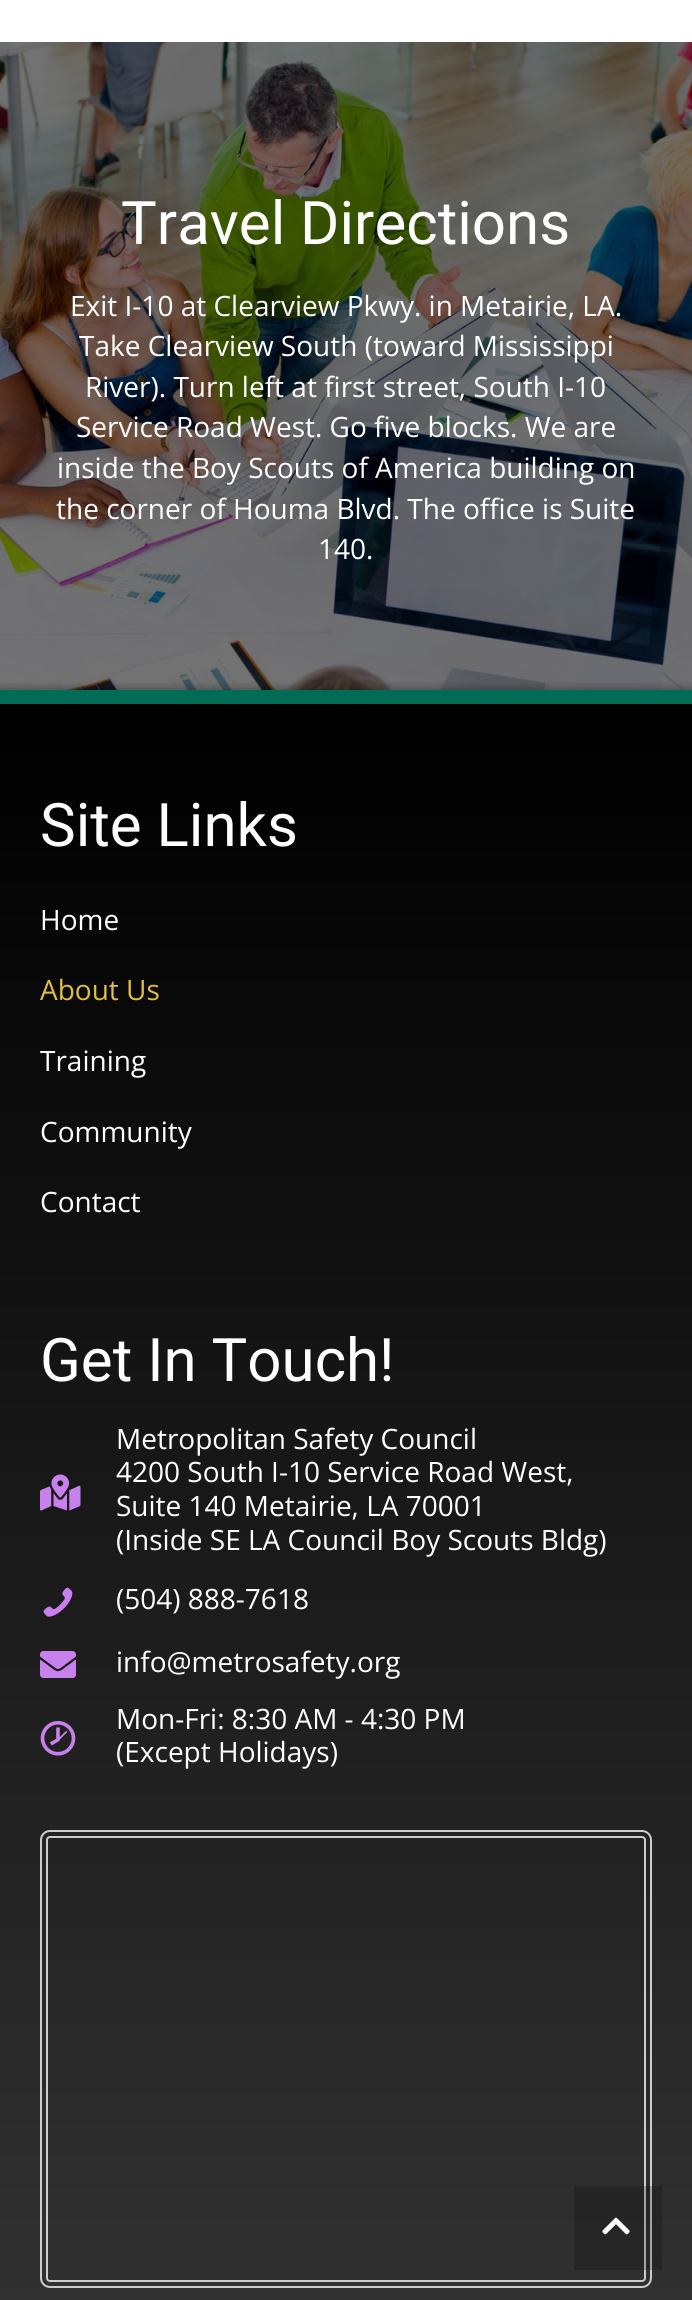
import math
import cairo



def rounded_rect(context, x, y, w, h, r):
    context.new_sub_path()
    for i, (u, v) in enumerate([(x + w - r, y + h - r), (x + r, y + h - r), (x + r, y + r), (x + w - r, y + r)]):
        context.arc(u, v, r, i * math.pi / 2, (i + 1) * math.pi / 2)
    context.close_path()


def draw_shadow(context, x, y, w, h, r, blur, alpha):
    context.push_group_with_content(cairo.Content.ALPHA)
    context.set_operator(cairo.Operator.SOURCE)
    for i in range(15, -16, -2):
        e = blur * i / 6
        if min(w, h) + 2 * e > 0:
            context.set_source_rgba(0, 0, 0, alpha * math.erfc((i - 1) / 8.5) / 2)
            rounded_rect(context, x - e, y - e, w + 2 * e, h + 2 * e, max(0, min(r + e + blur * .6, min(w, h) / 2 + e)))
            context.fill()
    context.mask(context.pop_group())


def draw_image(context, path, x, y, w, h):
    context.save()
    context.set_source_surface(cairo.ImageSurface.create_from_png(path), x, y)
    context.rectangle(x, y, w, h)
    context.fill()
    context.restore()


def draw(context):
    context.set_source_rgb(1, 1, 1)
    context.paint()
    draw_image(context, "images/1.png", 0, 42, 692, 648)
    context.set_source_rgb(0, 0, 0)
    draw_shadow(context, -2, 688, 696, 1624, 0, 4, 0.32)
    gradient = cairo.LinearGradient(346, 704, 346, 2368)
    gradient.add_color_stop_rgba(0, 0, 0, 0, 1)
    gradient.add_color_stop_rgba(1, 51 / 255, 51 / 255, 51 / 255, 1)
    context.set_source(gradient)
    context.rectangle(0, 704, 692, 1596)
    context.fill()
    context.set_source_rgb(0, 108 / 255, 85 / 255)
    context.rectangle(0, 690, 692, 14)
    context.fill()
    draw_image(context, "images/2.png", 40, 1474, 41, 37)
    draw_image(context, "images/3.png", 43, 1587, 30, 30)
    draw_image(context, "images/4.png", 40, 1651, 36, 27)
    draw_image(context, "images/5.png", 40, 1721, 36, 35)
    rounded_rect(context, 41, 1831, 610, 456, 9)
    context.set_source_rgb(204 / 255, 204 / 255, 204 / 255)
    context.stroke()
    rounded_rect(context, 47, 1837, 598, 444, 3)
    context.stroke()
    context.set_source_rgba(0, 0, 0, 0.2)
    context.rectangle(574, 2186, 88, 84)
    context.fill()
    draw_image(context, "images/6.png", 602, 2217, 28, 18)
    context.select_font_face("Roboto")
    context.set_font_size(60)
    context.set_source_rgb(1, 1, 1)
    context.move_to(121, 244)
    context.show_text("Travel Directions")
    context.select_font_face("Open Sans")
    context.set_font_size(28)
    context.move_to(70, 316)
    context.show_text("Exit I-10 at Clearview Pkwy. in Metairie, LA.")
    context.move_to(79, 356)
    context.show_text("Take Clearview South (toward Mississippi")
    context.move_to(85, 397)
    context.show_text("River). Turn left at first street, South I-10")
    context.move_to(76, 437)
    context.show_text("Service Road West. Go five blocks. We are")
    context.move_to(57, 478)
    context.show_text("inside the Boy Scouts of America building on")
    context.move_to(56, 519)
    context.show_text("the corner of Houma Blvd. The office is Suite")
    context.move_to(318, 559)
    context.show_text("140.")
    context.select_font_face("Roboto")
    context.set_font_size(60)
    context.move_to(40, 846)
    context.show_text("Site Links")
    context.select_font_face("Open Sans")
    context.set_font_size(28)
    context.move_to(40, 930)
    context.show_text("Home")
    context.set_source_rgb(224 / 255, 190 / 255, 67 / 255)
    context.move_to(40, 1000)
    context.show_text("About Us")
    context.set_source_rgb(1, 1, 1)
    context.move_to(40, 1071)
    context.show_text("Training")
    context.move_to(40, 1142)
    context.show_text("Community")
    context.move_to(40, 1212)
    context.show_text("Contact")
    context.select_font_face("Roboto")
    context.set_font_size(60)
    context.move_to(40, 1381)
    context.show_text("Get In Touch!")
    context.select_font_face("Open Sans")
    context.set_font_size(28)
    context.move_to(116, 1449)
    context.show_text("Metropolitan Safety Council")
    context.move_to(116, 1482)
    context.show_text("4200 South I-10 Service Road West,")
    context.move_to(116, 1516)
    context.show_text("Suite 140 Metairie, LA 70001")
    context.move_to(116, 1550)
    context.show_text("(Inside SE LA Council Boy Scouts Bldg)")
    context.move_to(116, 1609)
    context.show_text("(504) 888-7618")
    context.move_to(116, 1672)
    context.show_text("info@metrosafety.org")
    context.move_to(116, 1729)
    context.show_text("Mon-Fri: 8:30 AM - 4:30 PM")
    context.move_to(116, 1762)
    context.show_text("(Except Holidays)")


surface = cairo.ImageSurface(cairo.Format.RGB24, 692, 2300)
context = cairo.Context(surface)
options = cairo.FontOptions()
options.set_hint_metrics(cairo.HintMetrics.OFF)
options.set_hint_style(cairo.HintStyle.NONE)
context.set_font_options(options)
context.set_miter_limit(4)
draw(context)
surface.write_to_png("out.png")
